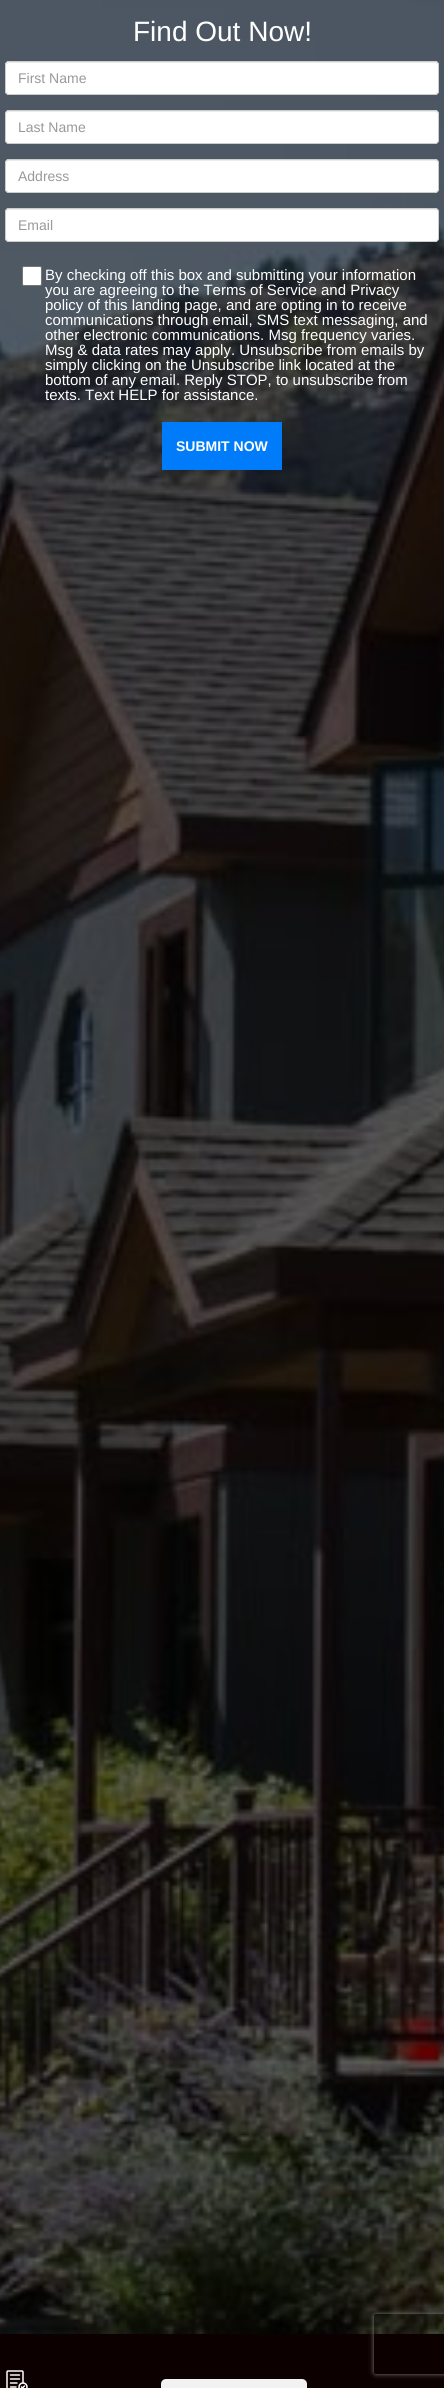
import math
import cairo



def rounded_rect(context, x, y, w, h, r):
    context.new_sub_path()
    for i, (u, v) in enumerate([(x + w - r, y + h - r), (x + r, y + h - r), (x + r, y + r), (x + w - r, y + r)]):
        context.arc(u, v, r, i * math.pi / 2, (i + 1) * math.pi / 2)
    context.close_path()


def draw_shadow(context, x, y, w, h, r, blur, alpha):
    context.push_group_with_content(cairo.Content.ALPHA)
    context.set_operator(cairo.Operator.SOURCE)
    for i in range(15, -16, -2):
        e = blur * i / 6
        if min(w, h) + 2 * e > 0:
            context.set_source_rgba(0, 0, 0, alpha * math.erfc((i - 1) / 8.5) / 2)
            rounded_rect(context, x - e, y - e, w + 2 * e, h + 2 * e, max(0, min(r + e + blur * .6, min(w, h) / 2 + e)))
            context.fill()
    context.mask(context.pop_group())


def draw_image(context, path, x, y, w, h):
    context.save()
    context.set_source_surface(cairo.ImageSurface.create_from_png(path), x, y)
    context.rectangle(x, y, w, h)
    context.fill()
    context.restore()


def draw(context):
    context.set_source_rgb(1, 1, 1)
    context.paint()
    draw_image(context, "images/1.png", 0, 0, 444, 2334)
    context.set_source_rgb(1, 1, 1)
    rounded_rect(context, 5, 61, 434, 34, 4)
    context.fill()
    context.set_source_rgb(236 / 255, 236 / 255, 236 / 255)
    context.new_path()
    context.move_to(9, 63)
    context.line_to(435, 63)
    context.curve_to(437, 63, 438, 64, 438, 66)
    context.curve_to(438, 64, 437, 62, 435, 62)
    context.line_to(9, 62)
    context.curve_to(7, 62, 6, 64, 6, 66)
    context.curve_to(6, 64, 7, 63, 9, 63)
    context.close_path()
    context.fill()
    rounded_rect(context, 5.5, 61.5, 433, 33, 3.5)
    context.set_source_rgb(204 / 255, 204 / 255, 204 / 255)
    context.set_line_width(1)
    context.stroke()
    context.set_source_rgb(1, 1, 1)
    rounded_rect(context, 5, 110, 434, 34, 4)
    context.fill()
    context.set_source_rgb(236 / 255, 236 / 255, 236 / 255)
    context.new_path()
    context.move_to(9, 112)
    context.line_to(435, 112)
    context.curve_to(437, 112, 438, 113, 438, 115)
    context.curve_to(438, 113, 437, 111, 435, 111)
    context.line_to(9, 111)
    context.curve_to(7, 111, 6, 113, 6, 115)
    context.curve_to(6, 113, 7, 112, 9, 112)
    context.close_path()
    context.fill()
    rounded_rect(context, 5.5, 110.5, 433, 33, 3.5)
    context.set_source_rgb(204 / 255, 204 / 255, 204 / 255)
    context.stroke()
    context.set_source_rgb(1, 1, 1)
    rounded_rect(context, 5, 159, 434, 34, 4)
    context.fill()
    context.set_source_rgb(236 / 255, 236 / 255, 236 / 255)
    context.new_path()
    context.move_to(9, 161)
    context.line_to(435, 161)
    context.curve_to(437, 161, 438, 162, 438, 164)
    context.curve_to(438, 162, 437, 160, 435, 160)
    context.line_to(9, 160)
    context.curve_to(7, 160, 6, 162, 6, 164)
    context.curve_to(6, 162, 7, 161, 9, 161)
    context.close_path()
    context.fill()
    rounded_rect(context, 5.5, 159.5, 433, 33, 3.5)
    context.set_source_rgb(204 / 255, 204 / 255, 204 / 255)
    context.stroke()
    context.set_source_rgb(1, 1, 1)
    rounded_rect(context, 5, 208, 434, 34, 4)
    context.fill()
    context.set_source_rgb(236 / 255, 236 / 255, 236 / 255)
    context.new_path()
    context.move_to(9, 210)
    context.line_to(435, 210)
    context.curve_to(437, 210, 438, 211, 438, 213)
    context.curve_to(438, 211, 437, 209, 435, 209)
    context.line_to(9, 209)
    context.curve_to(7, 209, 6, 211, 6, 213)
    context.curve_to(6, 211, 7, 210, 9, 210)
    context.close_path()
    context.fill()
    rounded_rect(context, 5.5, 208.5, 433, 33, 3.5)
    context.set_source_rgb(204 / 255, 204 / 255, 204 / 255)
    context.stroke()
    context.set_source_rgb(1, 1, 1)
    rounded_rect(context, 22.5, 266.5, 19, 19, 1.5)
    context.fill_preserve()
    context.set_source_rgb(118 / 255, 118 / 255, 118 / 255)
    context.stroke()
    context.set_source_rgb(0, 124 / 255, 251 / 255)
    context.rectangle(162, 422, 120, 48)
    context.fill()
    context.set_source_rgb(13 / 255, 0, 0)
    context.rectangle(0, 2334, 444, 54)
    context.fill()
    draw_image(context, "images/2.png", 6, 2370, 22, 18)
    context.set_source_rgb(242 / 255, 242 / 255, 242 / 255)
    rounded_rect(context, 161, 2379, 146, 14, 5)
    context.fill()
    context.save()
    context.set_fill_rule(cairo.FillRule.EVEN_ODD)
    context.new_path()
    context.move_to(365, 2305)
    context.line_to(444, 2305)
    context.line_to(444, 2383)
    context.line_to(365, 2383)
    context.close_path()
    context.move_to(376, 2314)
    context.line_to(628, 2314)
    context.curve_to(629, 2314, 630, 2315, 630, 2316)
    context.line_to(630, 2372)
    context.curve_to(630, 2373, 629, 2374, 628, 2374)
    context.line_to(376, 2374)
    context.curve_to(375, 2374, 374, 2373, 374, 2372)
    context.line_to(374, 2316)
    context.curve_to(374, 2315, 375, 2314, 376, 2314)
    context.close_path()
    context.clip()
    context.set_source_rgb(128 / 255, 128 / 255, 128 / 255)
    draw_shadow(context, 374, 2314, 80, 60, 2, 2.5, 1)
    context.restore()
    context.select_font_face("Liberation Sans")
    context.set_font_size(28)
    context.set_source_rgb(1, 1, 1)
    context.move_to(133, 41)
    context.show_text("Find Out Now!")
    context.set_font_size(14)
    context.set_source_rgb(153 / 255, 153 / 255, 153 / 255)
    context.move_to(18, 83)
    context.show_text("First Name")
    context.move_to(18, 132)
    context.show_text("Last Name")
    context.move_to(18, 181)
    context.show_text("Address")
    context.move_to(18, 230)
    context.show_text("Email")
    context.set_font_size(15)
    context.set_source_rgb(1, 1, 1)
    context.move_to(45, 280)
    context.show_text("By checking off this box and submitting your information")
    context.move_to(45, 295)
    context.show_text("you are agreeing to the Terms of Service and Privacy")
    context.move_to(45, 310)
    context.show_text("policy of this landing page, and are opting in to receive")
    context.move_to(45, 325)
    context.show_text("communications through email, SMS text messaging, and")
    context.move_to(45, 340)
    context.show_text("other electronic communications. Msg frequency varies.")
    context.move_to(45, 355)
    context.show_text("Msg & data rates may apply. Unsubscribe from emails by")
    context.move_to(45, 370)
    context.show_text("simply clicking on the Unsubscribe link located at the")
    context.move_to(45, 385)
    context.show_text("bottom of any email. Reply STOP, to unsubscribe from")
    context.move_to(45, 400)
    context.show_text("texts. Text HELP for assistance.")
    context.select_font_face("Liberation Sans", cairo.FontSlant.NORMAL, cairo.FontWeight.BOLD)
    context.set_font_size(14)
    context.move_to(176, 451)
    context.show_text("SUBMIT NOW")


surface = cairo.ImageSurface(cairo.Format.RGB24, 444, 2388)
context = cairo.Context(surface)
options = cairo.FontOptions()
options.set_hint_metrics(cairo.HintMetrics.OFF)
options.set_hint_style(cairo.HintStyle.NONE)
context.set_font_options(options)
context.set_miter_limit(4)
draw(context)
surface.write_to_png("out.png")
